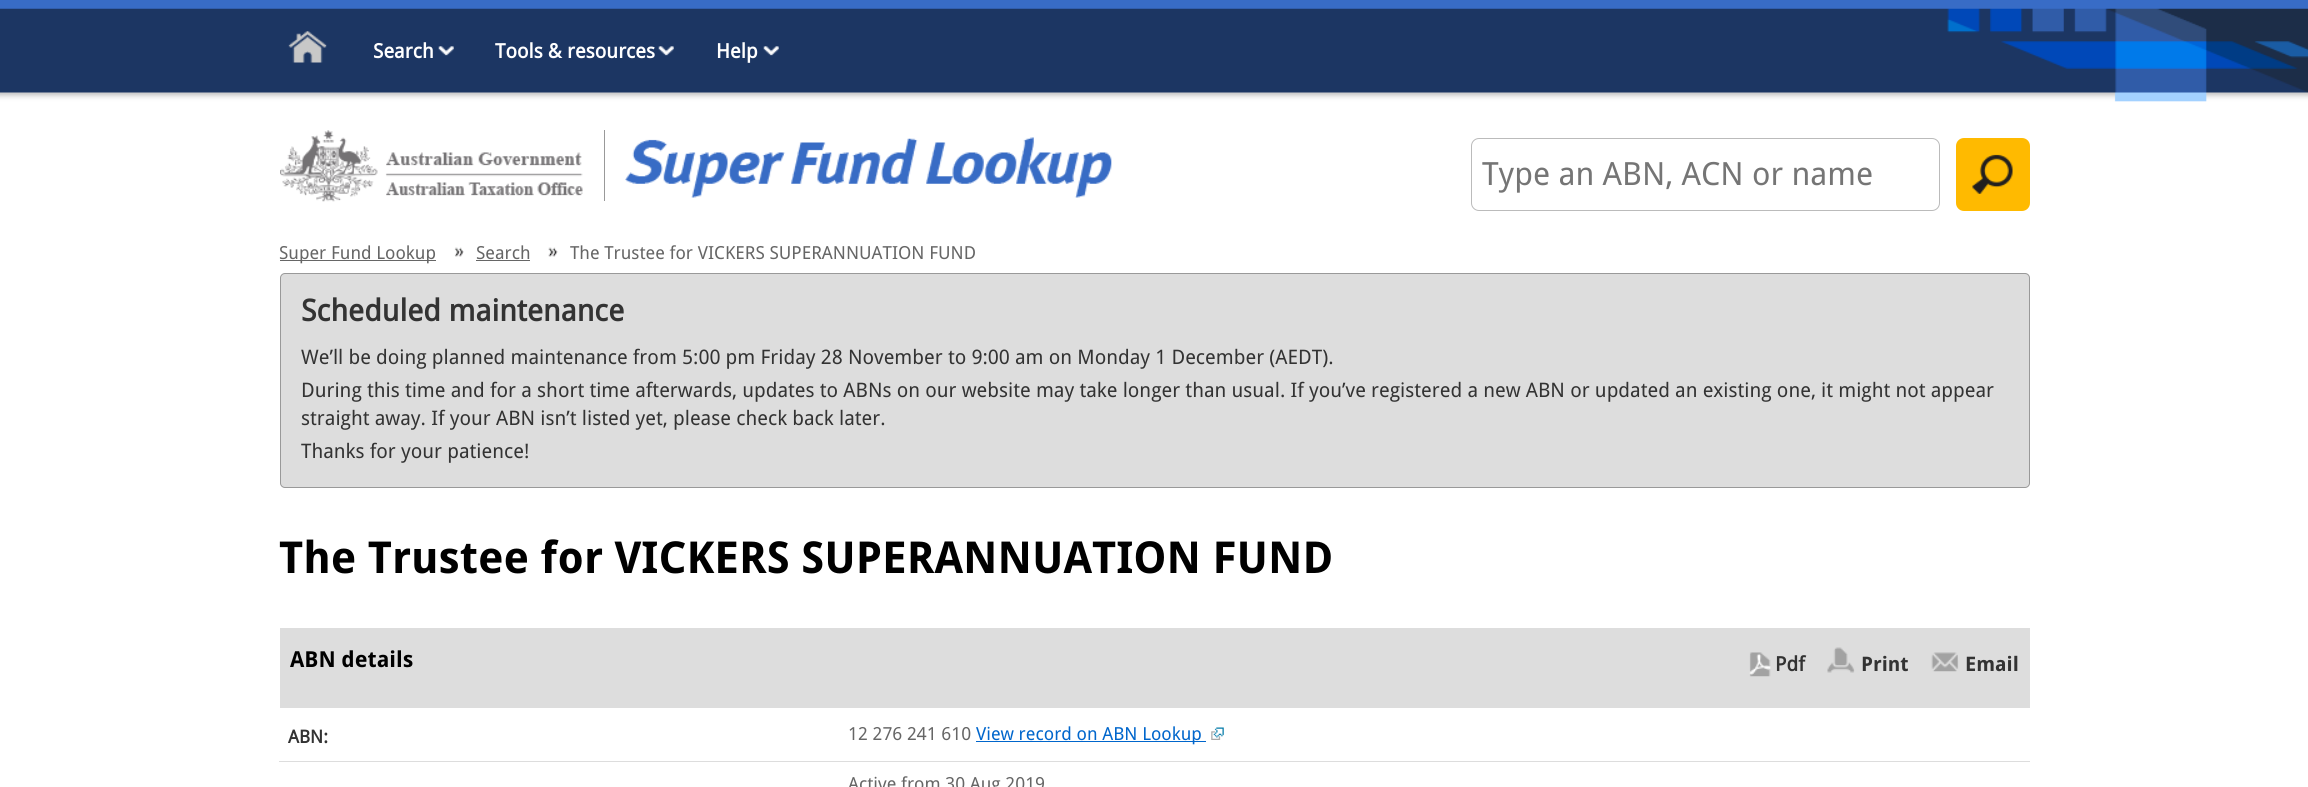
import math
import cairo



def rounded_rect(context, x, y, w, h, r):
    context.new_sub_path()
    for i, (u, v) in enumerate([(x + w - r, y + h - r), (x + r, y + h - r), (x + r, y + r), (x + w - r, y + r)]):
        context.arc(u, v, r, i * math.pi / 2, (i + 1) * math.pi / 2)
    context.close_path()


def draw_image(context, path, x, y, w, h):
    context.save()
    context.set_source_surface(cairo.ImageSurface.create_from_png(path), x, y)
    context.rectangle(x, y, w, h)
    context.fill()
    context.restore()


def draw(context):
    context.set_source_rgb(1, 1, 1)
    context.paint()
    draw_image(context, "images/1.png", 0, 0, 2308, 113)
    draw_image(context, "images/2.png", 288, 31, 39, 32)
    draw_image(context, "images/3.png", 438, 46, 16, 10)
    draw_image(context, "images/4.png", 658, 46, 16, 10)
    draw_image(context, "images/4.png", 763, 46, 16, 10)
    context.set_source_rgb(153 / 255, 153 / 255, 153 / 255)
    context.rectangle(604, 130, 1, 71)
    context.fill()
    draw_image(context, "images/5.png", 280, 130, 303, 72)
    draw_image(context, "images/6.png", 625, 137, 487, 61)
    rounded_rect(context, 1471.5, 138.5, 468, 72, 7.5)
    context.set_source_rgb(187 / 255, 187 / 255, 187 / 255)
    context.set_line_width(1)
    context.stroke()
    context.set_source_rgb(1, 186 / 255, 0)
    rounded_rect(context, 1956, 138, 74, 73, 8)
    context.fill()
    draw_image(context, "images/7.png", 1972, 154, 41, 40)
    context.set_source_rgb(102 / 255, 102 / 255, 102 / 255)
    context.rectangle(280, 260, 156, 1)
    context.fill()
    draw_image(context, "images/8.png", 454, 247, 10, 10)
    context.rectangle(476, 260, 54, 1)
    context.fill()
    draw_image(context, "images/9.png", 548, 247, 10, 10)
    context.set_source_rgb(221 / 255, 221 / 255, 221 / 255)
    rounded_rect(context, 280.5, 273.5, 1749, 214, 4.5)
    context.fill_preserve()
    context.set_source_rgb(153 / 255, 153 / 255, 153 / 255)
    context.stroke()
    context.set_source_rgb(221 / 255, 221 / 255, 221 / 255)
    context.rectangle(280, 628, 1750, 80)
    context.fill()
    draw_image(context, "images/10.png", 1749, 652, 22, 25)
    draw_image(context, "images/11.png", 1827, 647, 28, 26)
    draw_image(context, "images/12.png", 1931, 652, 28, 20)
    context.rectangle(279, 761, 1751, 1)
    context.fill()
    context.set_source_rgb(0, 102 / 255, 204 / 255)
    context.rectangle(976, 741, 230, 1)
    context.fill()
    draw_image(context, "images/13.png", 1211, 727, 13, 13)
    context.select_font_face("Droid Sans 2", cairo.FontSlant.NORMAL, cairo.FontWeight.BOLD)
    context.set_font_size(20)
    context.set_source_rgb(1, 1, 1)
    context.move_to(373, 58)
    context.show_text("Search")
    context.move_to(495, 58)
    context.show_text("Tools & resources")
    context.move_to(716, 58)
    context.show_text("Help")
    context.select_font_face("Droid Sans")
    context.set_font_size(32)
    context.set_source_rgb(117 / 255, 117 / 255, 117 / 255)
    context.move_to(1482, 185)
    context.show_text("Type an ABN, ACN or name")
    context.set_font_size(18)
    context.set_source_rgb(102 / 255, 102 / 255, 102 / 255)
    context.move_to(279, 259)
    context.show_text("Super Fund Lookup")
    context.move_to(476, 259)
    context.show_text("Search")
    context.move_to(570, 259)
    context.show_text("The Trustee for VICKERS SUPERANNUATION FUND")
    context.select_font_face("Droid Sans 2", cairo.FontSlant.NORMAL, cairo.FontWeight.BOLD)
    context.set_font_size(30)
    context.set_source_rgb(51 / 255, 51 / 255, 51 / 255)
    context.move_to(301, 321)
    context.show_text("Scheduled maintenance")
    context.select_font_face("Droid Sans")
    context.set_font_size(20)
    context.move_to(301, 364)
    context.show_text("We’ll be doing planned maintenance from 5:00 pm Friday 28 November to 9:00 am on Monday 1 December (AEDT).")
    context.move_to(301, 397)
    context.show_text("During this time and for a short time afterwards, updates to ABNs on our website may take longer than usual. If you’ve registered a new ABN or updated an existing one, it might not appear")
    context.move_to(301, 425)
    context.show_text("straight away. If your ABN isn’t listed yet, please check back later.")
    context.move_to(301, 458)
    context.show_text("Thanks for your patience!")
    context.select_font_face("Droid Sans", cairo.FontSlant.NORMAL, cairo.FontWeight.BOLD)
    context.set_font_size(44)
    context.set_source_rgb(0, 0, 0)
    context.move_to(279, 573)
    context.show_text("The Trustee for VICKERS SUPERANNUATION FUND")
    context.set_font_size(22)
    context.move_to(290, 667)
    context.show_text("ABN details")
    context.select_font_face("Droid Sans 2", cairo.FontSlant.NORMAL, cairo.FontWeight.BOLD)
    context.set_font_size(20)
    context.set_source_rgb(51 / 255, 51 / 255, 51 / 255)
    context.move_to(1775, 671)
    context.show_text("Pdf")
    context.select_font_face("Droid Sans", cairo.FontSlant.NORMAL, cairo.FontWeight.BOLD)
    context.move_to(1861, 671)
    context.show_text("Print")
    context.move_to(1965, 671)
    context.show_text("Email")
    context.select_font_face("Droid Sans 2", cairo.FontSlant.NORMAL, cairo.FontWeight.BOLD)
    context.set_font_size(18)
    context.move_to(288, 743)
    context.show_text("ABN:")
    context.select_font_face("Droid Sans")
    context.set_source_rgb(102 / 255, 102 / 255, 102 / 255)
    context.move_to(848, 740)
    context.show_text("12 276 241 610")
    context.set_source_rgb(0, 102 / 255, 204 / 255)
    context.move_to(976, 740)
    context.show_text("View record on ABN Lookup")
    context.set_source_rgb(102 / 255, 102 / 255, 102 / 255)
    context.move_to(848, 790)
    context.show_text("Active from 30 Aug 2019")


surface = cairo.ImageSurface(cairo.Format.RGB24, 2308, 787)
context = cairo.Context(surface)
options = cairo.FontOptions()
options.set_hint_metrics(cairo.HintMetrics.OFF)
options.set_hint_style(cairo.HintStyle.NONE)
context.set_font_options(options)
context.set_miter_limit(4)
draw(context)
surface.write_to_png("out.png")
